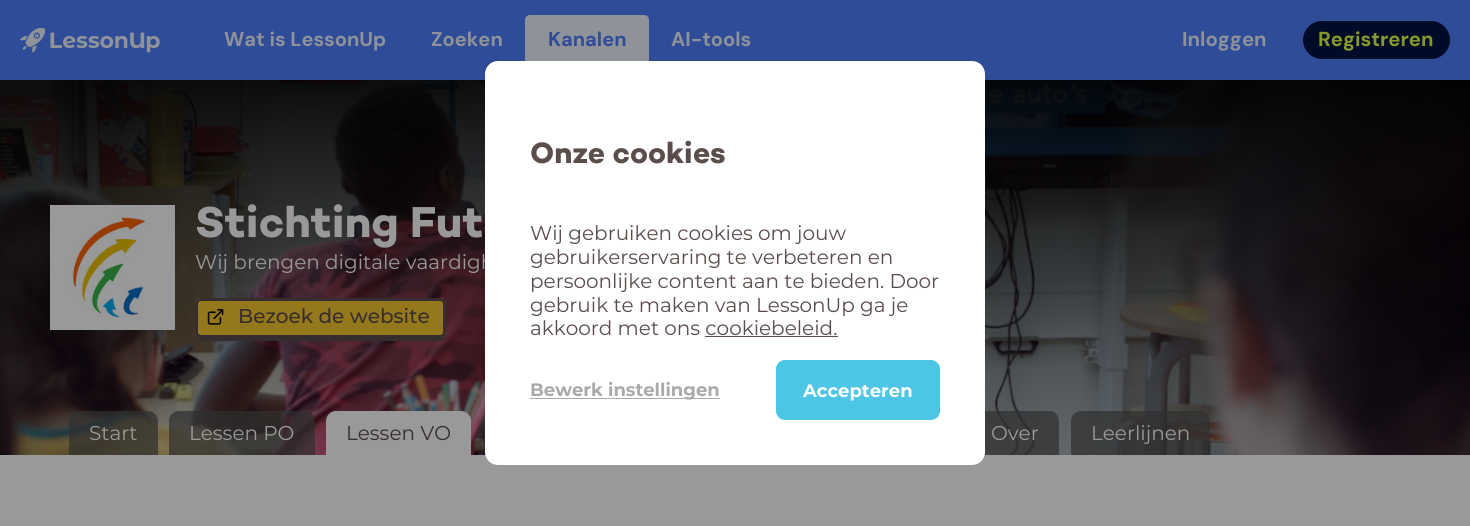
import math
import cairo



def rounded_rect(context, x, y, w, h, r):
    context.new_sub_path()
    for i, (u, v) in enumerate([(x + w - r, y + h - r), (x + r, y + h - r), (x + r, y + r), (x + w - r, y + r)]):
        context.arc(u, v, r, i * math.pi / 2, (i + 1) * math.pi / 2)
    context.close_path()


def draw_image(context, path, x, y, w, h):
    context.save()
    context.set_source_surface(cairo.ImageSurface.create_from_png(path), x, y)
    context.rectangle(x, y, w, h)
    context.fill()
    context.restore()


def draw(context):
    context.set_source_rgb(153 / 255, 153 / 255, 153 / 255)
    context.paint()
    context.set_source_rgb(47 / 255, 76 / 255, 153 / 255)
    context.rectangle(0, 0, 1470, 80)
    context.fill()
    draw_image(context, "images/1.png", 20, 28, 140, 25)
    context.set_source_rgb(143 / 255, 146 / 255, 153 / 255)
    rounded_rect(context, 525, 15, 124, 50, 5)
    context.fill()
    context.set_source_rgb(0, 11 / 255, 40 / 255)
    rounded_rect(context, 1303, 21, 147, 38, 19)
    context.fill()
    draw_image(context, "images/2.png", 0, 80, 1470, 375)
    draw_image(context, "images/3.png", 50, 205, 125, 125)
    context.set_source_rgb(54 / 255, 46 / 255, 46 / 255)
    context.new_path()
    context.move_to(195, 331)
    context.line_to(195, 335)
    context.curve_to(195, 338, 198, 341, 201, 341)
    context.line_to(440, 341)
    context.curve_to(443, 341, 446, 338, 446, 335)
    context.line_to(446, 333)
    context.curve_to(445, 336, 443, 338, 440, 338)
    context.line_to(201, 338)
    context.curve_to(198, 338, 195, 335, 195, 331)
    context.close_path()
    context.fill()
    context.set_source_rgb(149 / 255, 120 / 255, 27 / 255)
    rounded_rect(context, 195, 298, 251, 40, 6)
    context.fill()
    draw_image(context, "images/4.png", 207, 308, 17, 17)
    rounded_rect(context, 196.5, 299.5, 248, 37, 4.5)
    context.set_source_rgb(54 / 255, 46 / 255, 46 / 255)
    context.set_line_width(3)
    context.stroke()
    context.set_source_rgba(48 / 255, 48 / 255, 48 / 255, 0.7)
    context.new_path()
    context.move_to(79, 411)
    context.line_to(148, 411)
    context.curve_to(153.5, 411, 158, 415.5, 158, 421)
    context.line_to(158, 455)
    context.line_to(69, 455)
    context.line_to(69, 421)
    context.curve_to(69, 415.5, 73.5, 411, 79, 411)
    context.close_path()
    context.fill()
    context.new_path()
    context.move_to(179, 411)
    context.line_to(305, 411)
    context.curve_to(310.5, 411, 315, 415.5, 315, 421)
    context.line_to(315, 455)
    context.line_to(169, 455)
    context.line_to(169, 421)
    context.curve_to(169, 415.5, 173.5, 411, 179, 411)
    context.close_path()
    context.fill()
    context.set_source_rgb(153 / 255, 153 / 255, 153 / 255)
    context.new_path()
    context.move_to(336, 411)
    context.line_to(461, 411)
    context.curve_to(466.5, 411, 471, 415.5, 471, 421)
    context.line_to(471, 455)
    context.line_to(326, 455)
    context.line_to(326, 421)
    context.curve_to(326, 415.5, 330.5, 411, 336, 411)
    context.close_path()
    context.fill()
    context.set_source_rgba(48 / 255, 48 / 255, 48 / 255, 0.7)
    context.new_path()
    context.move_to(494, 411)
    context.line_to(640, 411)
    context.curve_to(645.5, 411, 650, 415.5, 650, 421)
    context.line_to(650, 455)
    context.line_to(484, 455)
    context.line_to(484, 421)
    context.curve_to(484, 415.5, 488.5, 411, 494, 411)
    context.close_path()
    context.fill()
    context.new_path()
    context.move_to(981, 411)
    context.line_to(1049, 411)
    context.curve_to(1054.5, 411, 1059, 415.5, 1059, 421)
    context.line_to(1059, 455)
    context.line_to(971, 455)
    context.line_to(971, 421)
    context.curve_to(971, 415.5, 975.5, 411, 981, 411)
    context.close_path()
    context.fill()
    context.new_path()
    context.move_to(1081, 411)
    context.line_to(1200, 411)
    context.curve_to(1205.5, 411, 1210, 415.5, 1210, 421)
    context.line_to(1210, 455)
    context.line_to(1071, 455)
    context.line_to(1071, 421)
    context.curve_to(1071, 415.5, 1075.5, 411, 1081, 411)
    context.close_path()
    context.fill()
    context.select_font_face("DM Sans", cairo.FontSlant.NORMAL, cairo.FontWeight.BOLD)
    context.set_font_size(20)
    context.set_source_rgb(143 / 255, 146 / 255, 153 / 255)
    context.move_to(224, 46)
    context.show_text("Wat is LessonUp")
    context.move_to(431, 46)
    context.show_text("Zoeken")
    context.set_source_rgb(47 / 255, 76 / 255, 153 / 255)
    context.move_to(548, 46)
    context.show_text("Kanalen")
    context.set_source_rgb(143 / 255, 146 / 255, 153 / 255)
    context.move_to(671, 46)
    context.show_text("AI-tools")
    context.set_font_size(20.25)
    context.move_to(1182, 46)
    context.show_text("Inloggen")
    context.set_source_rgb(137 / 255, 153 / 255, 41 / 255)
    context.move_to(1318, 46)
    context.show_text("Registreren")
    context.select_font_face("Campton", cairo.FontSlant.NORMAL, cairo.FontWeight.BOLD)
    context.set_font_size(44)
    context.set_source_rgb(153 / 255, 153 / 255, 153 / 255)
    context.move_to(195, 237)
    context.show_text("Stichting Fut")
    context.select_font_face("Montserrat")
    context.set_font_size(20)
    context.move_to(195, 269)
    context.show_text("Wij brengen digitale vaardigh")
    context.select_font_face("Montserrat Medium")
    context.set_source_rgb(54 / 255, 46 / 255, 46 / 255)
    context.move_to(238, 323)
    context.show_text("Bezoek de website")
    context.select_font_face("Montserrat")
    context.set_source_rgb(153 / 255, 153 / 255, 153 / 255)
    context.move_to(89, 440)
    context.show_text("Start")
    context.move_to(189, 440)
    context.show_text("Lessen PO")
    context.set_source_rgb(54 / 255, 46 / 255, 46 / 255)
    context.move_to(346, 440)
    context.show_text("Lessen VO")
    context.set_source_rgb(153 / 255, 153 / 255, 153 / 255)
    context.move_to(991, 440)
    context.show_text("Over")
    context.move_to(1091, 440)
    context.show_text("Leerlijnen")
    context.set_source_rgb(1, 1, 1)
    rounded_rect(context, 485, 61, 500, 404, 13)
    context.fill()
    context.select_font_face("Campton", cairo.FontSlant.NORMAL, cairo.FontWeight.BOLD)
    context.set_font_size(30)
    context.set_source_rgb(90 / 255, 77 / 255, 76 / 255)
    context.move_to(530, 163)
    context.show_text("Onze cookies")
    context.select_font_face("Montserrat")
    context.set_font_size(20)
    context.move_to(530, 240)
    context.show_text("Wij gebruiken cookies om jouw")
    context.move_to(530, 264)
    context.show_text("gebruikerservaring te verbeteren en")
    context.move_to(530, 288)
    context.show_text("persoonlijke content aan te bieden. Door")
    context.move_to(530, 312)
    context.show_text("gebruik te maken van LessonUp ga je")
    context.move_to(530, 335)
    context.show_text("akkoord met ons cookiebeleid.")
    context.rectangle(705, 336, 133, 1)
    context.fill()
    context.set_source_rgb(170 / 255, 170 / 255, 170 / 255)
    context.rectangle(530, 398, 190, 1)
    context.fill()
    context.select_font_face("Montserrat", cairo.FontSlant.NORMAL, cairo.FontWeight.BOLD)
    context.set_font_size(18)
    context.move_to(530, 396)
    context.show_text("Bewerk instellingen")
    context.set_source_rgb(77 / 255, 198 / 255, 230 / 255)
    rounded_rect(context, 776, 360, 164, 60, 9)
    context.fill()
    context.set_source_rgb(1, 1, 1)
    context.move_to(803, 397)
    context.show_text("Accepteren")


surface = cairo.ImageSurface(cairo.Format.RGB24, 1470, 526)
context = cairo.Context(surface)
options = cairo.FontOptions()
options.set_hint_metrics(cairo.HintMetrics.OFF)
options.set_hint_style(cairo.HintStyle.NONE)
context.set_font_options(options)
context.set_miter_limit(4)
draw(context)
surface.write_to_png("out.png")
